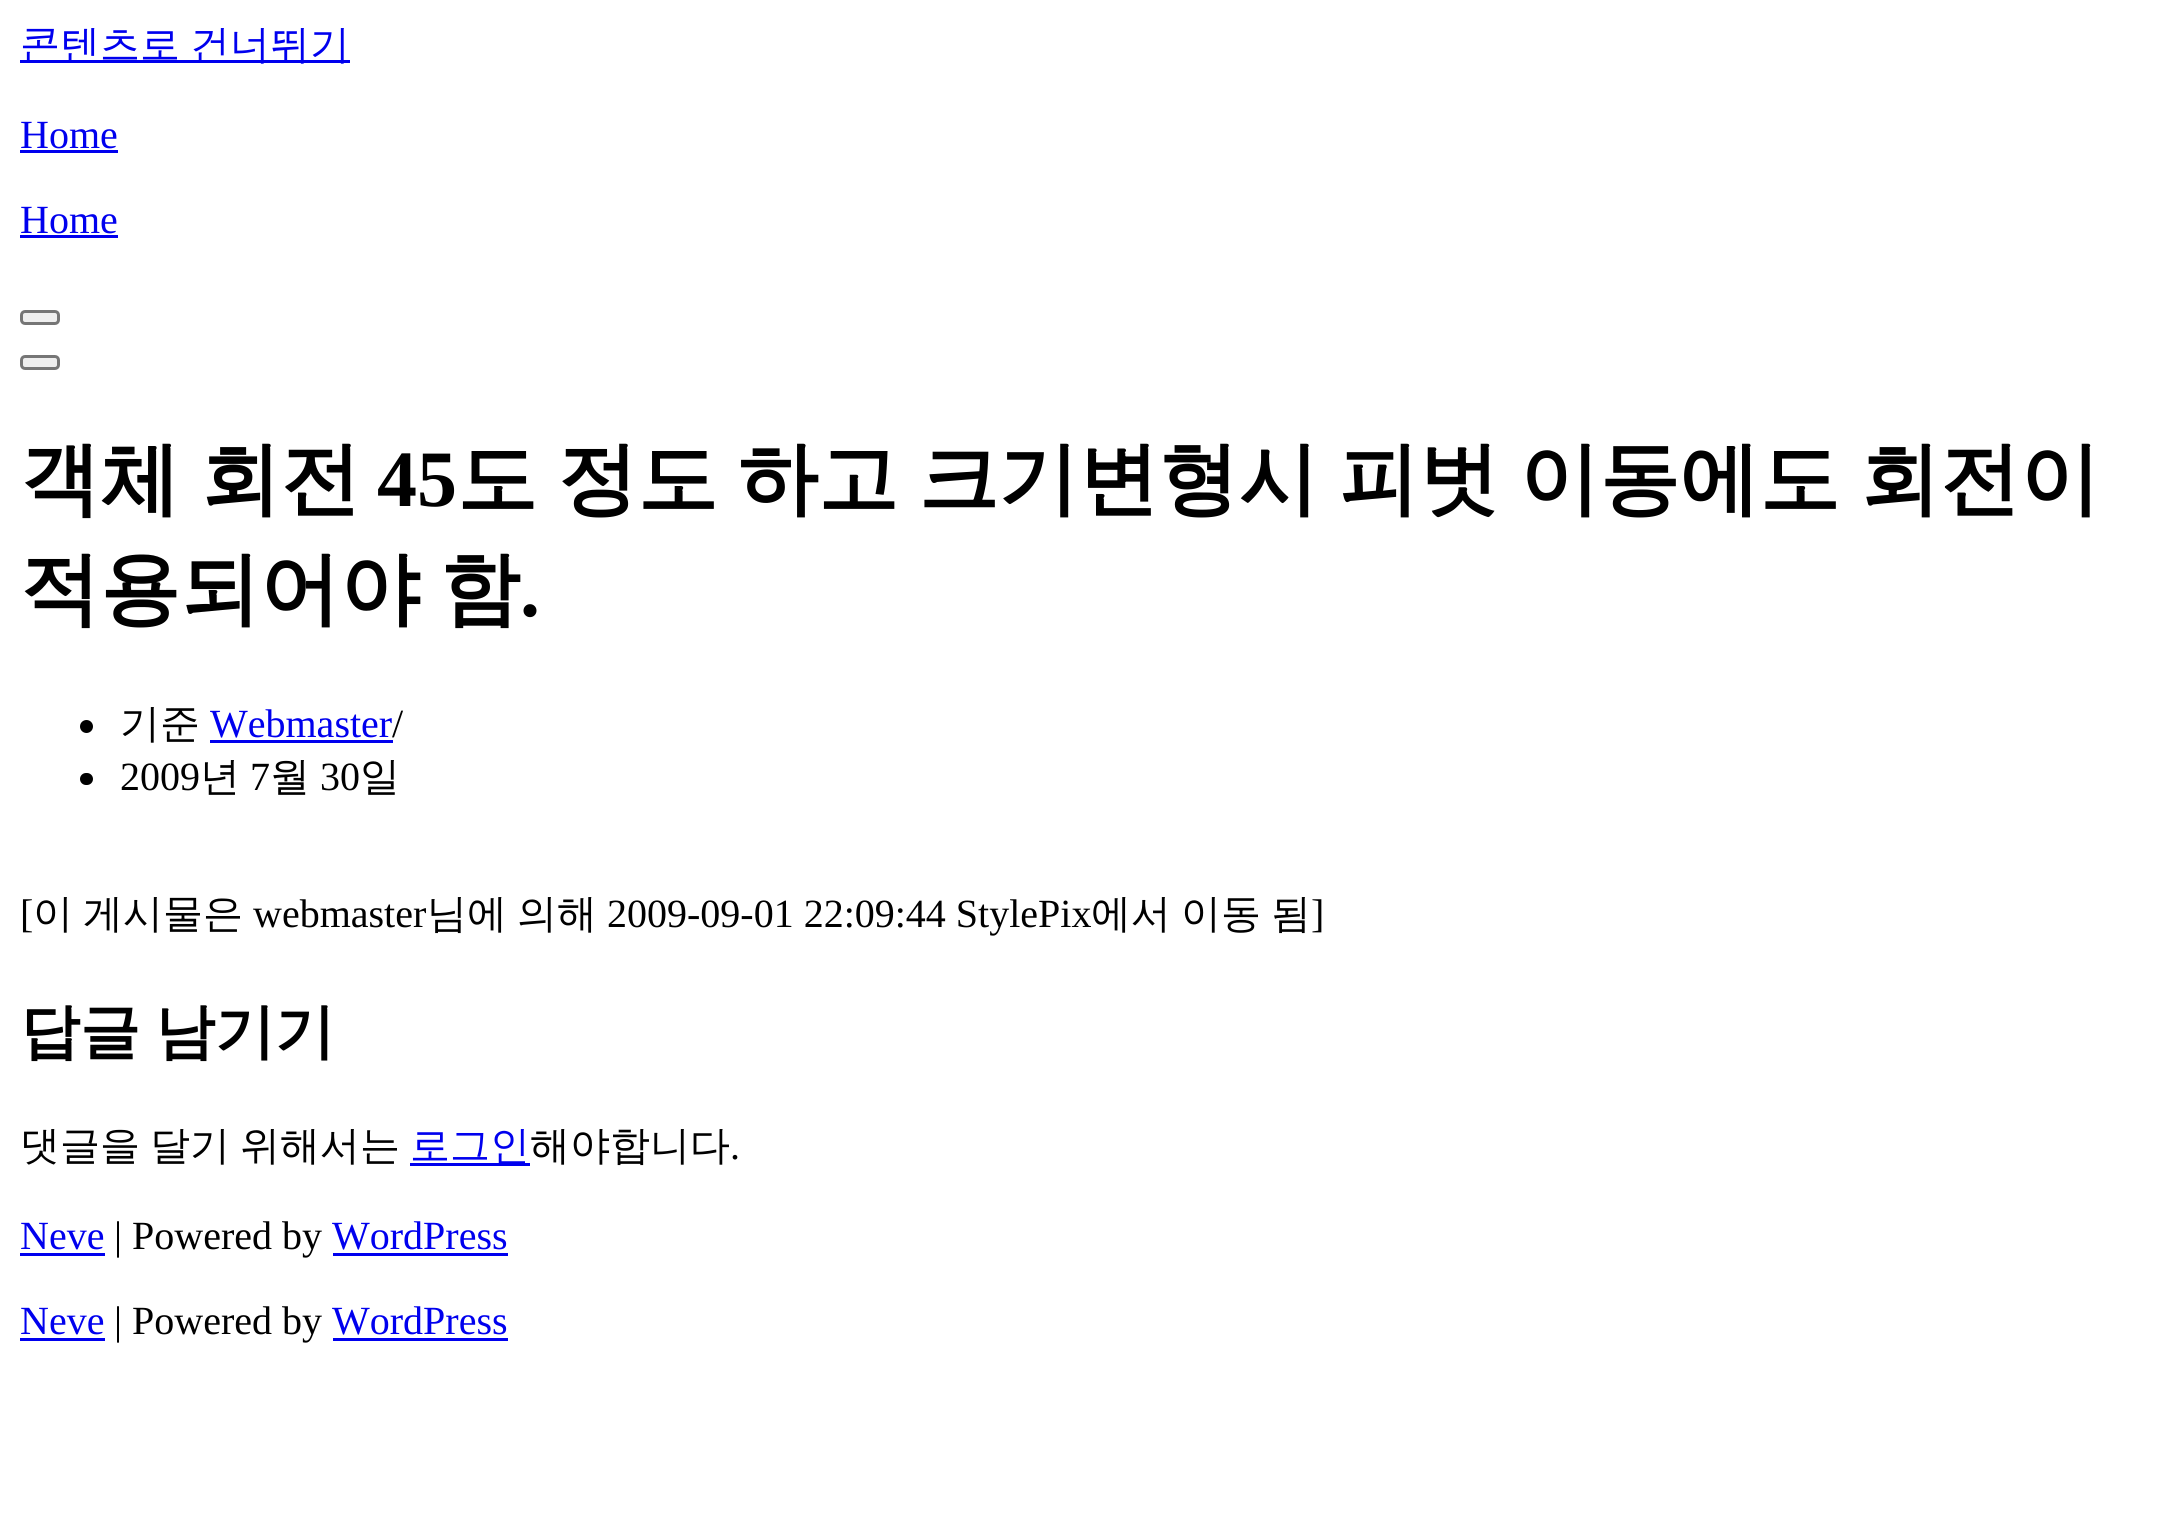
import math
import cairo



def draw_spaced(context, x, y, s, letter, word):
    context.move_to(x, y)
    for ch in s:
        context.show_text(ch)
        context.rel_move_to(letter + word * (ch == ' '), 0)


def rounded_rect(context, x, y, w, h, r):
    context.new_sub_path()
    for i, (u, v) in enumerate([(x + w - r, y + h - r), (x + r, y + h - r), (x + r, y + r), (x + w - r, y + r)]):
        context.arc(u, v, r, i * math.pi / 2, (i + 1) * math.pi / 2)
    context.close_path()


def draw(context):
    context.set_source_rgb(1, 1, 1)
    context.paint()
    context.set_source_rgb(0, 0, 238 / 255)
    context.rectangle(20, 60, 330, 3)
    context.fill()
    context.rectangle(20, 150, 98, 3)
    context.fill()
    context.rectangle(20, 235, 98, 3)
    context.fill()
    context.set_source_rgb(239 / 255, 239 / 255, 239 / 255)
    rounded_rect(context, 21.5, 311.5, 37, 12, 3.5)
    context.fill_preserve()
    context.set_source_rgb(118 / 255, 118 / 255, 118 / 255)
    context.set_line_width(3)
    context.stroke()
    context.set_source_rgb(239 / 255, 239 / 255, 239 / 255)
    rounded_rect(context, 21.5, 356.5, 37, 12, 3.5)
    context.fill_preserve()
    context.set_source_rgb(118 / 255, 118 / 255, 118 / 255)
    context.stroke()
    context.set_source_rgb(0, 0, 0)
    context.arc(86.5, 726.5, 6.5, 0, 2 * math.pi)
    context.fill()
    context.set_source_rgb(0, 0, 238 / 255)
    context.rectangle(210, 740, 183, 3)
    context.fill()
    context.set_source_rgb(0, 0, 0)
    rounded_rect(context, 80, 773, 13, 12, 6)
    context.fill()
    context.set_source_rgb(0, 0, 238 / 255)
    context.rectangle(410, 1163, 120, 3)
    context.fill()
    context.rectangle(20, 1253, 85, 3)
    context.fill()
    context.rectangle(333, 1253, 175, 3)
    context.fill()
    context.rectangle(20, 1338, 85, 3)
    context.fill()
    context.rectangle(333, 1338, 175, 3)
    context.fill()
    context.select_font_face("WenQuanYi Zen Hei Medium")
    context.set_font_size(40)
    draw_spaced(context, 20, 58, "콘텐츠로 건너뛰기", 0, -2)
    context.select_font_face("Liberation Serif")
    context.move_to(20, 148)
    context.show_text("Home")
    context.move_to(20, 233)
    context.show_text("Home")
    context.select_font_face("WenQuanYi Zen Hei", cairo.FontSlant.NORMAL, cairo.FontWeight.BOLD)
    context.set_font_size(80)
    context.set_source_rgb(0, 0, 0)
    draw_spaced(context, 20, 506, "객체 회전", 0, -3.5)
    context.select_font_face("Liberation Serif", cairo.FontSlant.NORMAL, cairo.FontWeight.BOLD)
    context.move_to(377, 506)
    context.show_text("45")
    context.select_font_face("WenQuanYi Zen Hei", cairo.FontSlant.NORMAL, cairo.FontWeight.BOLD)
    draw_spaced(context, 457, 506, "도 정도 하고 크기변형시 피벗 이동에도 회전이", 0, -3.5)
    draw_spaced(context, 20, 616, "적용되어야 함", 0, -4)
    context.select_font_face("Liberation Serif", cairo.FontSlant.NORMAL, cairo.FontWeight.BOLD)
    context.move_to(520, 616)
    context.show_text(".")
    context.select_font_face("WenQuanYi Zen Hei Medium")
    context.set_font_size(40)
    context.move_to(120, 737)
    context.show_text("기준")
    context.select_font_face("Liberation Serif")
    context.set_source_rgb(0, 0, 238 / 255)
    context.move_to(210, 737)
    context.show_text("Webmaster")
    context.set_source_rgb(0, 0, 0)
    context.move_to(392, 737)
    context.show_text("/")
    context.move_to(120, 790)
    context.show_text("2009")
    context.select_font_face("WenQuanYi Zen Hei Medium")
    context.move_to(200, 790)
    context.show_text("년")
    context.select_font_face("Liberation Serif")
    context.move_to(250, 790)
    context.show_text("7")
    context.select_font_face("WenQuanYi Zen Hei Medium")
    context.move_to(270, 790)
    context.show_text("월")
    context.select_font_face("Liberation Serif")
    context.move_to(320, 790)
    context.show_text("30")
    context.select_font_face("WenQuanYi Zen Hei Medium")
    context.move_to(360, 790)
    context.show_text("일")
    context.select_font_face("Liberation Serif")
    context.move_to(20, 927)
    context.show_text("[")
    context.select_font_face("WenQuanYi Zen Hei Medium")
    context.move_to(33, 927)
    context.show_text("이")
    context.move_to(83, 927)
    context.show_text("게시물은")
    context.select_font_face("Liberation Serif")
    context.move_to(253, 927)
    context.show_text("webmaster")
    context.select_font_face("WenQuanYi Zen Hei Medium")
    context.move_to(427, 927)
    context.show_text("님에")
    context.move_to(517, 927)
    context.show_text("의해")
    context.select_font_face("Liberation Serif")
    context.move_to(607, 927)
    context.show_text("2009-09-01 22:09:44 StylePix")
    context.select_font_face("WenQuanYi Zen Hei Medium")
    context.move_to(1091, 927)
    context.show_text("에서")
    context.move_to(1181, 927)
    context.show_text("이동")
    context.move_to(1271, 927)
    context.show_text("됨")
    context.select_font_face("Liberation Serif")
    context.move_to(1311, 927)
    context.show_text("]")
    context.select_font_face("WenQuanYi Zen Hei", cairo.FontSlant.NORMAL, cairo.FontWeight.BOLD)
    context.set_font_size(60)
    draw_spaced(context, 20, 1052, "답글 남기기", 0, -3)
    context.select_font_face("WenQuanYi Zen Hei Medium")
    context.set_font_size(40)
    draw_spaced(context, 20, 1159, "댓글을 달기 위해서는", 0, -2)
    context.set_source_rgb(0, 0, 238 / 255)
    context.move_to(410, 1159)
    context.show_text("로그인")
    context.set_source_rgb(0, 0, 0)
    context.move_to(530, 1159)
    context.show_text("해야합니다")
    context.select_font_face("Liberation Serif")
    context.move_to(730, 1159)
    context.show_text(".")
    context.set_source_rgb(0, 0, 238 / 255)
    context.move_to(20, 1249)
    context.show_text("Neve")
    context.set_source_rgb(0, 0, 0)
    context.move_to(114, 1249)
    context.show_text("| Powered by")
    context.set_source_rgb(0, 0, 238 / 255)
    context.move_to(332, 1249)
    context.show_text("WordPress")
    context.move_to(20, 1334)
    context.show_text("Neve")
    context.set_source_rgb(0, 0, 0)
    context.move_to(114, 1334)
    context.show_text("| Powered by")
    context.set_source_rgb(0, 0, 238 / 255)
    context.move_to(332, 1334)
    context.show_text("WordPress")


surface = cairo.ImageSurface(cairo.Format.RGB24, 2184, 1528)
context = cairo.Context(surface)
options = cairo.FontOptions()
options.set_hint_metrics(cairo.HintMetrics.OFF)
options.set_hint_style(cairo.HintStyle.NONE)
context.set_font_options(options)
context.set_miter_limit(4)
draw(context)
surface.write_to_png("out.png")
